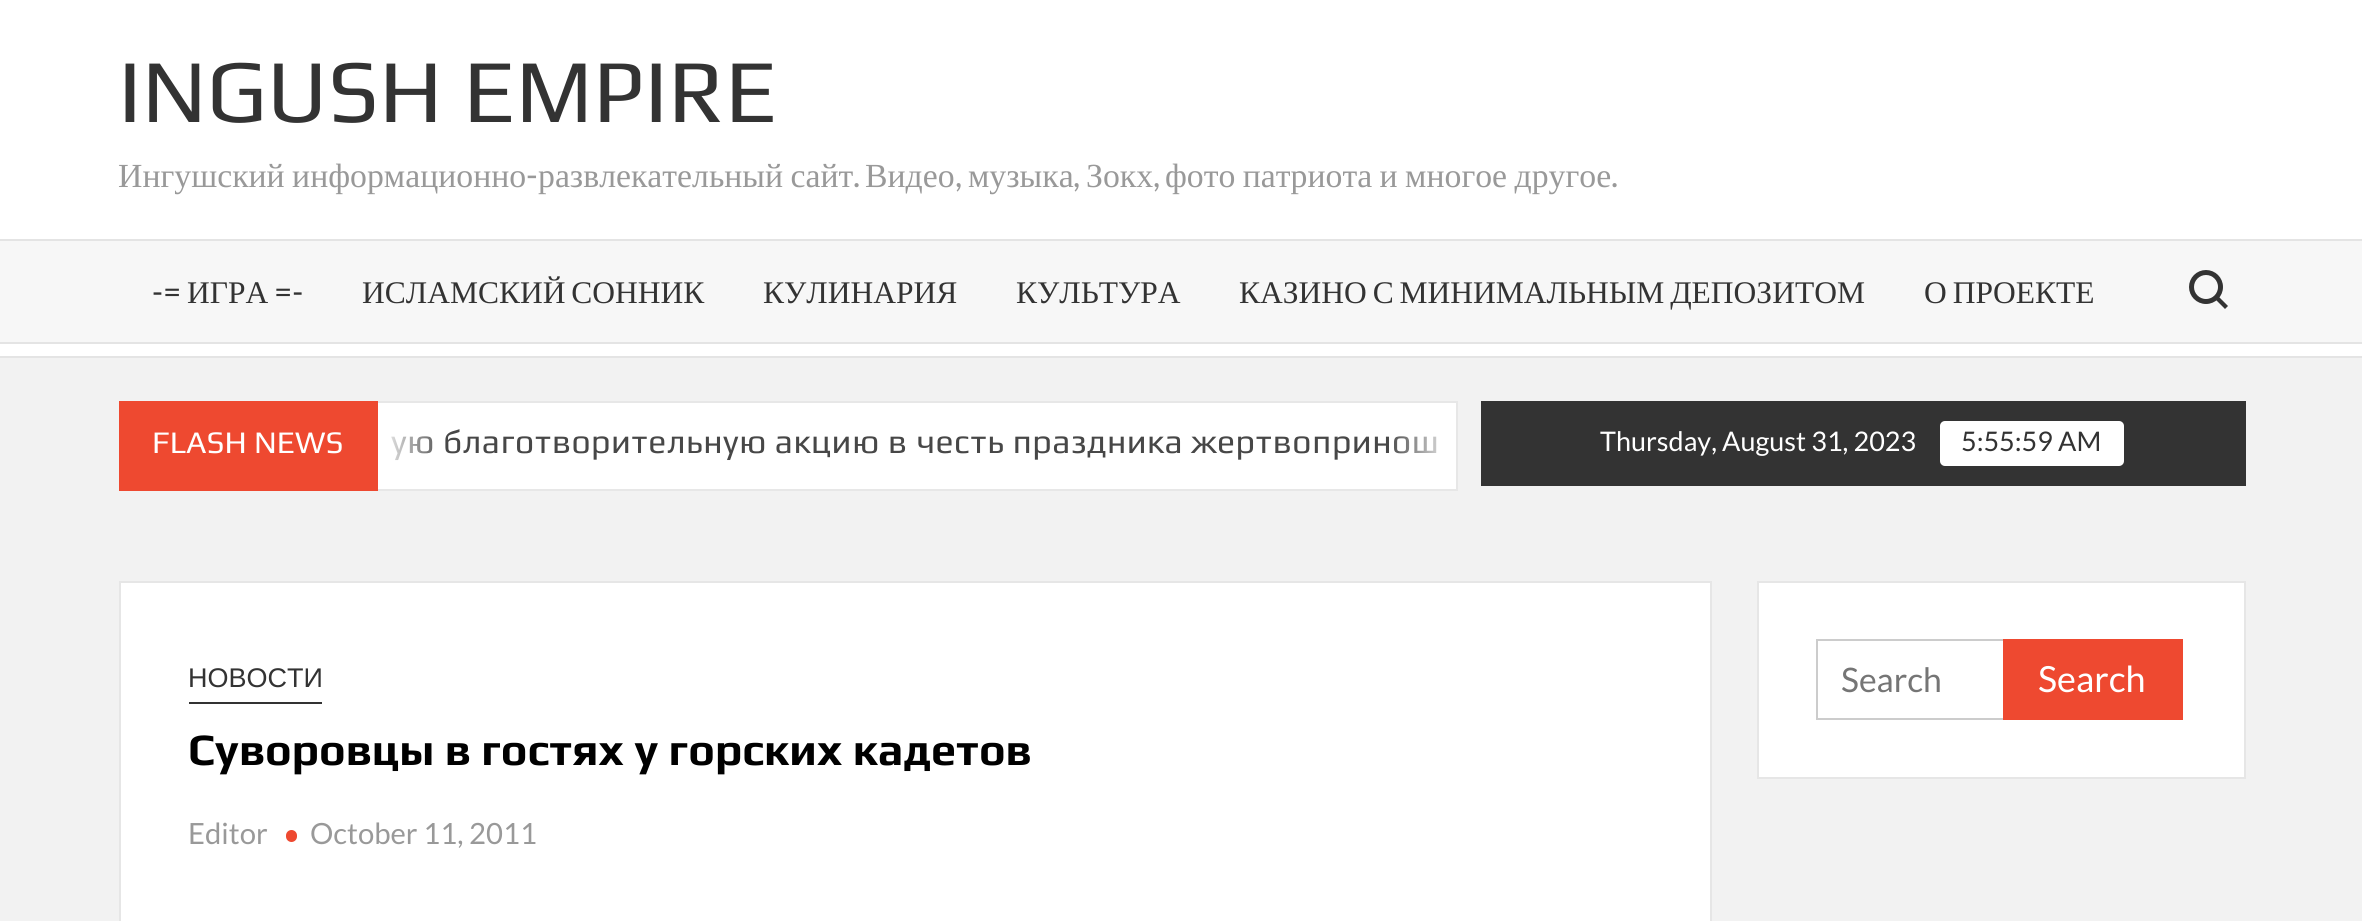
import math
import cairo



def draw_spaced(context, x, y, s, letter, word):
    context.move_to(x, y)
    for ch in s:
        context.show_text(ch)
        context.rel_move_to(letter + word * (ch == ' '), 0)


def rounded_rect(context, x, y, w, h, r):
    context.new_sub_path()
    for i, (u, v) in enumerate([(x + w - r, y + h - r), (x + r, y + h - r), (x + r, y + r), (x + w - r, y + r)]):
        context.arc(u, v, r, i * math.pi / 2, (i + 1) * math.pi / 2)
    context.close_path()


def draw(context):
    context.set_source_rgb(242 / 255, 242 / 255, 242 / 255)
    context.paint()
    context.set_source_rgb(1, 1, 1)
    context.rectangle(0, 0, 2362, 239)
    context.fill()
    context.set_source_rgb(228 / 255, 228 / 255, 228 / 255)
    context.new_path()
    context.move_to(0, 356)
    context.line_to(0, 358)
    context.line_to(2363, 358)
    context.line_to(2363, 241)
    context.line_to(2362, 241)
    context.line_to(2362, 356)
    context.close_path()
    context.fill()
    context.set_source_rgb(247 / 255, 247 / 255, 247 / 255)
    context.rectangle(0, 241, 2362, 101)
    context.fill()
    context.set_source_rgb(1, 1, 1)
    context.rectangle(0, 344, 2362, 12)
    context.fill()
    context.set_source_rgb(228 / 255, 228 / 255, 228 / 255)
    context.rectangle(0, 239, 2362, 2)
    context.fill()
    context.rectangle(0, 342, 2362, 2)
    context.fill()
    context.arc(2206, 287, 14.5, 0, 2 * math.pi)
    context.set_source_rgb(51 / 255, 51 / 255, 51 / 255)
    context.set_line_width(5)
    context.stroke()
    context.new_path()
    context.move_to(2218.5, 296.5)
    context.line_to(2228, 306)
    context.line_to(2225, 309)
    context.line_to(2215.5, 299.5)
    context.close_path()
    context.fill()
    context.set_source_rgb(1, 1, 1)
    context.rectangle(378, 403, 1078, 86)
    context.fill()
    context.rectangle(120, 402, 1337, 88)
    context.set_source_rgb(231 / 255, 231 / 255, 231 / 255)
    context.set_line_width(2)
    context.stroke()
    context.set_source_rgb(238 / 255, 73 / 255, 48 / 255)
    context.rectangle(119, 401, 259, 90)
    context.fill()
    context.set_source_rgb(51 / 255, 51 / 255, 51 / 255)
    context.rectangle(1481, 401, 765, 85)
    context.fill()
    context.set_source_rgb(1, 1, 1)
    rounded_rect(context, 1940, 421, 184, 45, 5)
    context.fill()
    context.rectangle(120, 582, 1591, 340)
    context.fill_preserve()
    context.set_source_rgb(230 / 255, 230 / 255, 230 / 255)
    context.stroke()
    context.set_source_rgb(51 / 255, 51 / 255, 51 / 255)
    context.rectangle(189, 702, 133, 2)
    context.fill()
    context.set_source_rgb(238 / 255, 73 / 255, 48 / 255)
    rounded_rect(context, 286, 830, 11, 12, 5.5)
    context.fill()
    context.set_source_rgb(1, 1, 1)
    context.rectangle(1758, 582, 487, 196)
    context.fill_preserve()
    context.set_source_rgb(230 / 255, 230 / 255, 230 / 255)
    context.stroke()
    context.rectangle(1817, 640, 187, 79)
    context.set_source_rgb(204 / 255, 204 / 255, 204 / 255)
    context.stroke()
    context.set_source_rgb(238 / 255, 73 / 255, 48 / 255)
    context.rectangle(2003, 639, 180, 81)
    context.fill()
    context.select_font_face("Play")
    context.set_font_size(90)
    context.set_source_rgb(51 / 255, 51 / 255, 51 / 255)
    context.move_to(118, 122)
    context.show_text("INGUSH EMPIRE")
    context.select_font_face("Liberation Serif")
    context.set_font_size(33.75)
    context.set_source_rgb(153 / 255, 153 / 255, 153 / 255)
    draw_spaced(context, 118, 187, "Ингушский информационно", 0, -1)
    context.select_font_face("Lato")
    context.move_to(526, 187)
    context.show_text("-")
    context.select_font_face("Liberation Serif")
    draw_spaced(context, 538, 187, "развлекательный сайт", 0, -1)
    context.move_to(865, 187)
    context.show_text("Видео")
    context.move_to(968, 187)
    context.show_text("музыка")
    context.move_to(1086, 187)
    context.show_text("Зокх")
    draw_spaced(context, 1165, 187, "фото патриота и многое другое", 0, -1)
    context.select_font_face("Lato")
    context.move_to(853, 187)
    context.show_text(".")
    context.move_to(955, 187)
    context.show_text(",")
    context.move_to(1073, 187)
    context.show_text(",")
    context.move_to(1153, 187)
    context.show_text(",")
    context.move_to(1611, 187)
    context.show_text(".")
    context.set_font_size(31.5)
    context.set_source_rgb(51 / 255, 51 / 255, 51 / 255)
    context.move_to(152, 303)
    context.show_text("-=")
    context.select_font_face("Liberation Serif")
    context.move_to(187, 303)
    context.show_text("ИГРА")
    context.select_font_face("Lato")
    context.move_to(274, 303)
    context.show_text("=-")
    context.select_font_face("Liberation Serif")
    draw_spaced(context, 362, 303, "ИСЛАМСКИЙ СОННИК", 0, -2)
    context.move_to(763, 303)
    context.show_text("КУЛИНАРИЯ")
    context.move_to(1016, 303)
    context.show_text("КУЛЬТУРА")
    draw_spaced(context, 1239, 303, "КАЗИНО С МИНИМАЛЬНЫМ ДЕПОЗИТОМ", 0, -2)
    draw_spaced(context, 1924, 303, "О ПРОЕКТЕ", 0, -2)
    context.select_font_face("Play")
    context.set_source_rgb(1, 1, 1)
    context.move_to(152, 453)
    context.show_text("FLASH NEWS")
    context.set_font_size(33.75)
    context.set_source_rgb(71 / 255, 71 / 255, 71 / 255)
    draw_spaced(context, 391, 453, "ую благотворительную акцию в честь праздника жертвопринош", 0.45, 0)
    gradient = cairo.LinearGradient(378, 446, 446, 446)
    gradient.add_color_stop_rgba(0, 1, 1, 1, 1)
    gradient.add_color_stop_rgba(1, 1, 1, 1, 0)
    context.set_source(gradient)
    context.rectangle(391, 436, 41, 24)
    context.fill()
    gradient = cairo.LinearGradient(1388, 446, 1456, 446)
    gradient.add_color_stop_rgba(0, 1, 1, 1, 0)
    gradient.add_color_stop_rgba(1, 1, 1, 1, 1)
    context.set_source(gradient)
    context.rectangle(1394, 436, 43, 18)
    context.fill()
    context.select_font_face("Lato")
    context.set_font_size(27)
    context.set_source_rgb(1, 1, 1)
    context.move_to(1600, 451)
    context.show_text("Thursday, August 31, 2023")
    context.set_source_rgb(51 / 255, 51 / 255, 51 / 255)
    context.move_to(1961, 451)
    context.show_text("5:55:59 AM")
    context.select_font_face("Liberation Sans")
    context.move_to(188, 687)
    context.show_text("НОВОСТИ")
    context.select_font_face("Play", cairo.FontSlant.NORMAL, cairo.FontWeight.BOLD)
    context.set_font_size(45)
    context.set_source_rgb(0, 0, 0)
    context.move_to(188, 765)
    context.show_text("Суворовцы в гостях у горских кадетов")
    context.select_font_face("Lato")
    context.set_font_size(29.25)
    context.set_source_rgb(153 / 255, 153 / 255, 153 / 255)
    context.move_to(188, 844)
    context.show_text("Editor")
    context.move_to(310, 844)
    context.show_text("October 11, 2011")
    context.set_font_size(33.75)
    context.set_source_rgb(117 / 255, 117 / 255, 117 / 255)
    context.move_to(1841, 692)
    context.show_text("Search")
    context.set_font_size(36)
    context.set_source_rgb(1, 1, 1)
    context.move_to(2038, 692)
    context.show_text("Search")


surface = cairo.ImageSurface(cairo.Format.RGB24, 2362, 921)
context = cairo.Context(surface)
options = cairo.FontOptions()
options.set_hint_metrics(cairo.HintMetrics.OFF)
options.set_hint_style(cairo.HintStyle.NONE)
context.set_font_options(options)
context.set_miter_limit(4)
draw(context)
surface.write_to_png("out.png")
